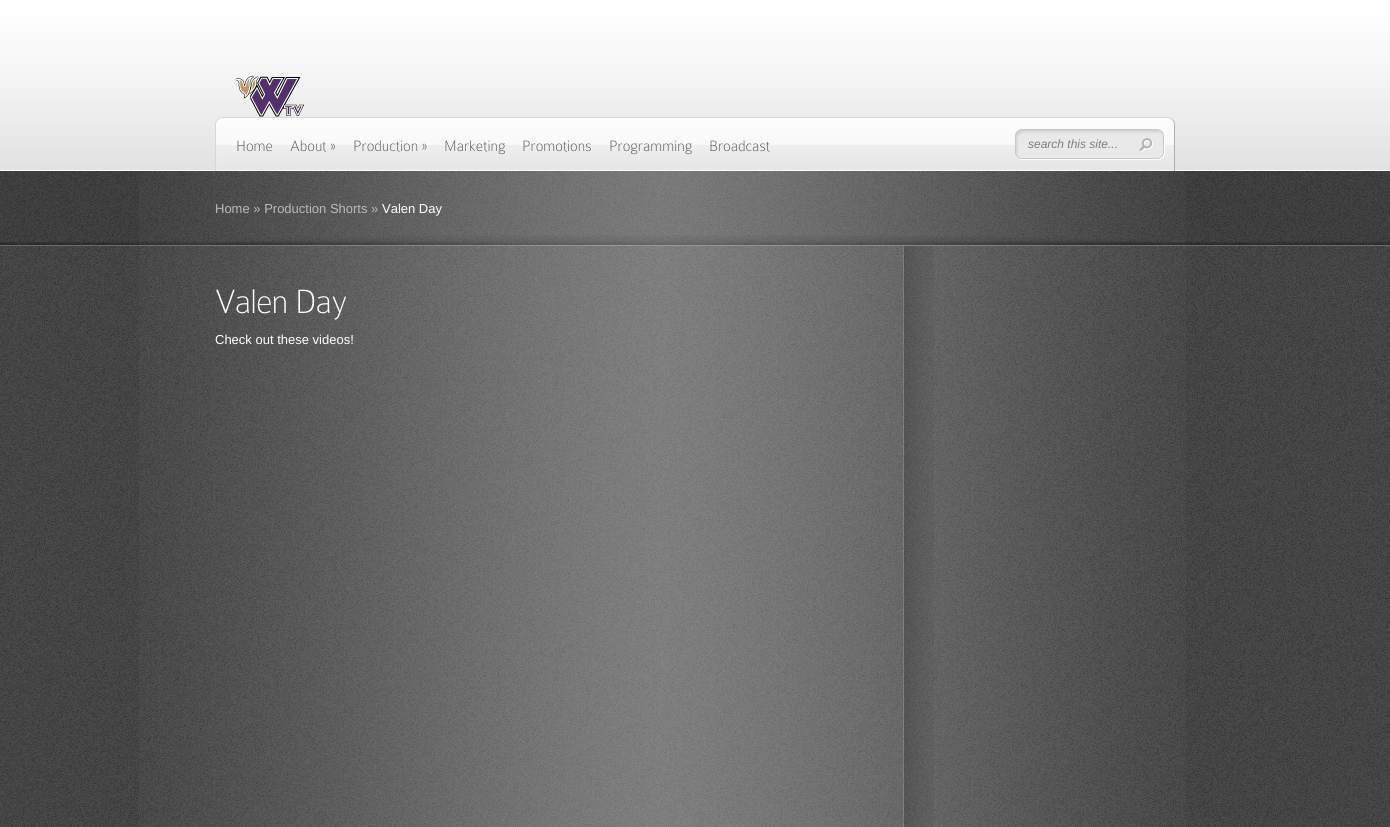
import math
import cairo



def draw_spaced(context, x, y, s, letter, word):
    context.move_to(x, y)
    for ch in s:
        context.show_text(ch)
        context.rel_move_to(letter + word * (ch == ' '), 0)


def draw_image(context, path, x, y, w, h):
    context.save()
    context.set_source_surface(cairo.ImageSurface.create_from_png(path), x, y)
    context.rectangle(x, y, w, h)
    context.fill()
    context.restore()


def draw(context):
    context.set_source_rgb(1, 1, 1)
    context.paint()
    draw_image(context, "images/1.png", 0, 171, 1390, 656)
    draw_image(context, "images/2.png", 0, 0, 1390, 170)
    draw_image(context, "images/3.png", 235, 75, 70, 42)
    draw_image(context, "images/4.png", 215, 117, 960, 54)
    draw_image(context, "images/5.png", 1015, 129, 150, 31)
    draw_image(context, "images/6.png", 1139, 138, 14, 14)
    draw_image(context, "images/7.png", 0, 242, 1390, 4)
    draw_image(context, "images/8.png", 0, 235, 1390, 11)
    context.set_source_rgba(0, 0, 0, 0.09)
    context.rectangle(0, 171, 1390, 75)
    context.fill()
    draw_image(context, "images/9.png", 139, 171, 1047, 75)
    draw_image(context, "images/10.png", 139, 246, 1047, 581)
    draw_image(context, "images/11.png", 903, 246, 31, 581)
    context.select_font_face("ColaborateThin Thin")
    context.set_font_size(16)
    context.set_source_rgb(83 / 255, 83 / 255, 83 / 255)
    context.move_to(236, 151)
    context.show_text("Home")
    context.move_to(290, 151)
    context.show_text("About »")
    context.move_to(353, 151)
    context.show_text("Production »")
    context.move_to(444, 151)
    context.show_text("Marketing")
    context.move_to(522, 151)
    context.show_text("Promotions")
    context.move_to(609, 151)
    context.show_text("Programming")
    context.move_to(709, 151)
    context.show_text("Broadcast")
    context.select_font_face("Liberation Sans", cairo.FontSlant.ITALIC)
    context.set_font_size(12)
    context.set_source_rgb(125 / 255, 125 / 255, 125 / 255)
    context.move_to(1028, 148)
    context.show_text("search this site...")
    context.select_font_face("Liberation Sans")
    context.set_font_size(13)
    context.set_source_rgb(185 / 255, 185 / 255, 185 / 255)
    context.move_to(215, 213)
    context.show_text("Home » Production Shorts »")
    context.set_source_rgb(1, 1, 1)
    context.move_to(382, 213)
    context.show_text("Valen Day")
    context.select_font_face("ColaborateThin Thin")
    context.set_font_size(36)
    draw_spaced(context, 215, 313, "Valen Day", -1, 0)
    context.select_font_face("Liberation Sans")
    context.set_font_size(13)
    context.move_to(215, 344)
    context.show_text("Check out these videos!")


surface = cairo.ImageSurface(cairo.Format.RGB24, 1390, 827)
context = cairo.Context(surface)
options = cairo.FontOptions()
options.set_hint_metrics(cairo.HintMetrics.OFF)
options.set_hint_style(cairo.HintStyle.NONE)
context.set_font_options(options)
context.set_miter_limit(4)
draw(context)
surface.write_to_png("out.png")
